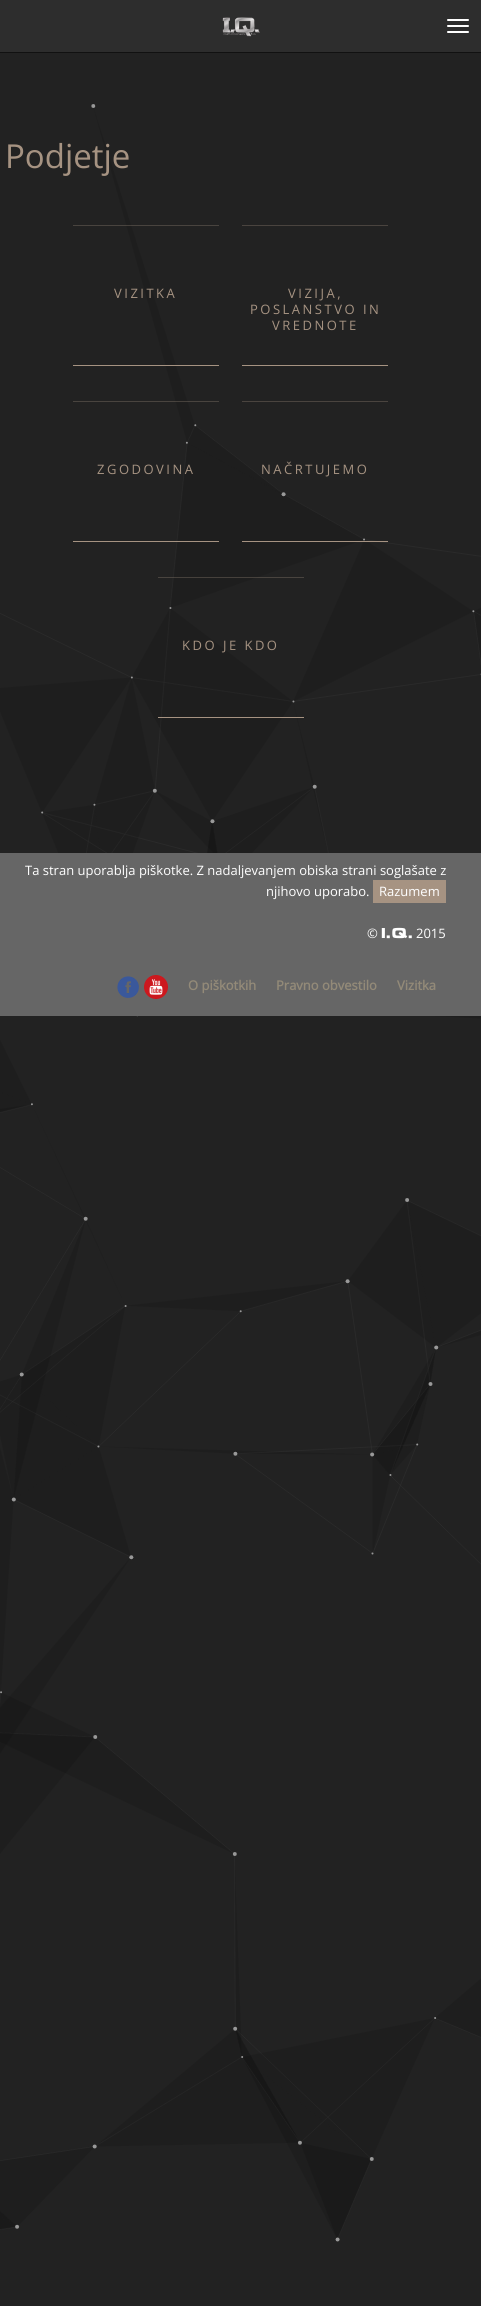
import math
import cairo



def draw_spaced(context, x, y, s, letter, word):
    context.move_to(x, y)
    for ch in s:
        context.show_text(ch)
        context.rel_move_to(letter + word * (ch == ' '), 0)


def rounded_rect(context, x, y, w, h, r):
    context.new_sub_path()
    for i, (u, v) in enumerate([(x + w - r, y + h - r), (x + r, y + h - r), (x + r, y + r), (x + w - r, y + r)]):
        context.arc(u, v, r, i * math.pi / 2, (i + 1) * math.pi / 2)
    context.close_path()


def draw_image(context, path, x, y, w, h):
    context.save()
    context.set_source_surface(cairo.ImageSurface.create_from_png(path), x, y)
    context.rectangle(x, y, w, h)
    context.fill()
    context.restore()


def draw(context):
    context.set_source_rgb(34 / 255, 34 / 255, 34 / 255)
    context.paint()
    draw_image(context, "images/1.png", 0, 104, 481, 2138)
    context.set_source_rgb(45 / 255, 45 / 255, 45 / 255)
    context.rectangle(0, 0, 481, 52)
    context.fill()
    draw_image(context, "images/2.png", 222, 17, 38, 20)
    context.set_source_rgb(1, 1, 1)
    rounded_rect(context, 447, 19, 22, 2, 1)
    context.fill()
    rounded_rect(context, 447, 25, 22, 2, 1)
    context.fill()
    rounded_rect(context, 447, 31, 22, 2, 1)
    context.fill()
    context.set_source_rgb(17 / 255, 17 / 255, 17 / 255)
    context.rectangle(0, 52, 481, 1)
    context.fill()
    context.set_source_rgba(166 / 255, 147 / 255, 130 / 255, 0.3)
    context.rectangle(73, 225, 146, 1)
    context.fill()
    context.set_source_rgb(166 / 255, 147 / 255, 130 / 255)
    context.rectangle(73, 365, 146, 1)
    context.fill()
    context.set_source_rgb(74 / 255, 68 / 255, 63 / 255)
    context.rectangle(242, 225, 146, 1)
    context.fill()
    context.set_source_rgb(166 / 255, 147 / 255, 130 / 255)
    context.rectangle(242, 365, 146, 1)
    context.fill()
    context.set_source_rgba(166 / 255, 147 / 255, 130 / 255, 0.3)
    context.rectangle(73, 401, 146, 1)
    context.fill()
    context.set_source_rgb(166 / 255, 147 / 255, 130 / 255)
    context.rectangle(73, 541, 146, 1)
    context.fill()
    context.set_source_rgb(74 / 255, 68 / 255, 63 / 255)
    context.rectangle(242, 401, 146, 1)
    context.fill()
    context.set_source_rgb(166 / 255, 147 / 255, 130 / 255)
    context.rectangle(242, 541, 146, 1)
    context.fill()
    context.set_source_rgba(166 / 255, 147 / 255, 130 / 255, 0.3)
    context.rectangle(158, 577, 146, 1)
    context.fill()
    context.set_source_rgb(166 / 255, 147 / 255, 130 / 255)
    context.rectangle(158, 717, 146, 1)
    context.fill()
    context.set_source_rgb(102 / 255, 102 / 255, 102 / 255)
    context.rectangle(0, 853, 481, 163)
    context.fill()
    context.set_source_rgb(166 / 255, 147 / 255, 130 / 255)
    context.rectangle(373, 880, 73, 23)
    context.fill()
    draw_image(context, "images/3.png", 117, 976, 22, 22)
    draw_image(context, "images/4.png", 144, 975, 24, 24)
    context.select_font_face("Open Sans")
    context.set_font_size(33)
    context.move_to(5, 168)
    context.show_text("Podjetje")
    context.set_font_size(13)
    draw_spaced(context, 114, 298, "VIZITKA", 2.5, 0)
    draw_spaced(context, 288, 298, "VIZIJA,", 2.5, 0)
    draw_spaced(context, 250, 314, "POSLANSTVO IN", 2.5, 0)
    draw_spaced(context, 272, 330, "VREDNOTE", 2.5, 0)
    draw_spaced(context, 97, 474, "ZGODOVINA", 2.5, 0)
    draw_spaced(context, 261, 474, "NAČRTUJEMO", 2.5, 0)
    draw_spaced(context, 182, 650, "KDO JE KDO", 2.5, 0)
    context.set_source_rgb(1, 1, 1)
    context.move_to(25, 875)
    context.show_text("Ta stran uporablja piškotke. Z nadaljevanjem obiska strani soglašate z")
    context.move_to(266, 896)
    context.show_text("njihovo uporabo.")
    context.move_to(379, 896)
    context.show_text("Razumem")
    context.move_to(367, 938)
    context.show_text("©")
    context.select_font_face("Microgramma", cairo.FontSlant.NORMAL, cairo.FontWeight.BOLD)
    context.set_font_size(14)
    context.move_to(381, 938)
    context.show_text("I.Q.")
    context.select_font_face("Open Sans")
    context.set_font_size(13)
    context.move_to(416, 938)
    context.show_text("2015")
    context.select_font_face("Open Sans", cairo.FontSlant.NORMAL, cairo.FontWeight.BOLD)
    context.set_source_rgb(147 / 255, 138 / 255, 120 / 255)
    context.move_to(188, 990)
    context.show_text("O piškotkih")
    context.move_to(276, 990)
    context.show_text("Pravno obvestilo")
    context.move_to(397, 990)
    context.show_text("Vizitka")


surface = cairo.ImageSurface(cairo.Format.RGB24, 481, 2306)
context = cairo.Context(surface)
options = cairo.FontOptions()
options.set_hint_metrics(cairo.HintMetrics.OFF)
options.set_hint_style(cairo.HintStyle.NONE)
context.set_font_options(options)
context.set_miter_limit(4)
draw(context)
surface.write_to_png("out.png")
